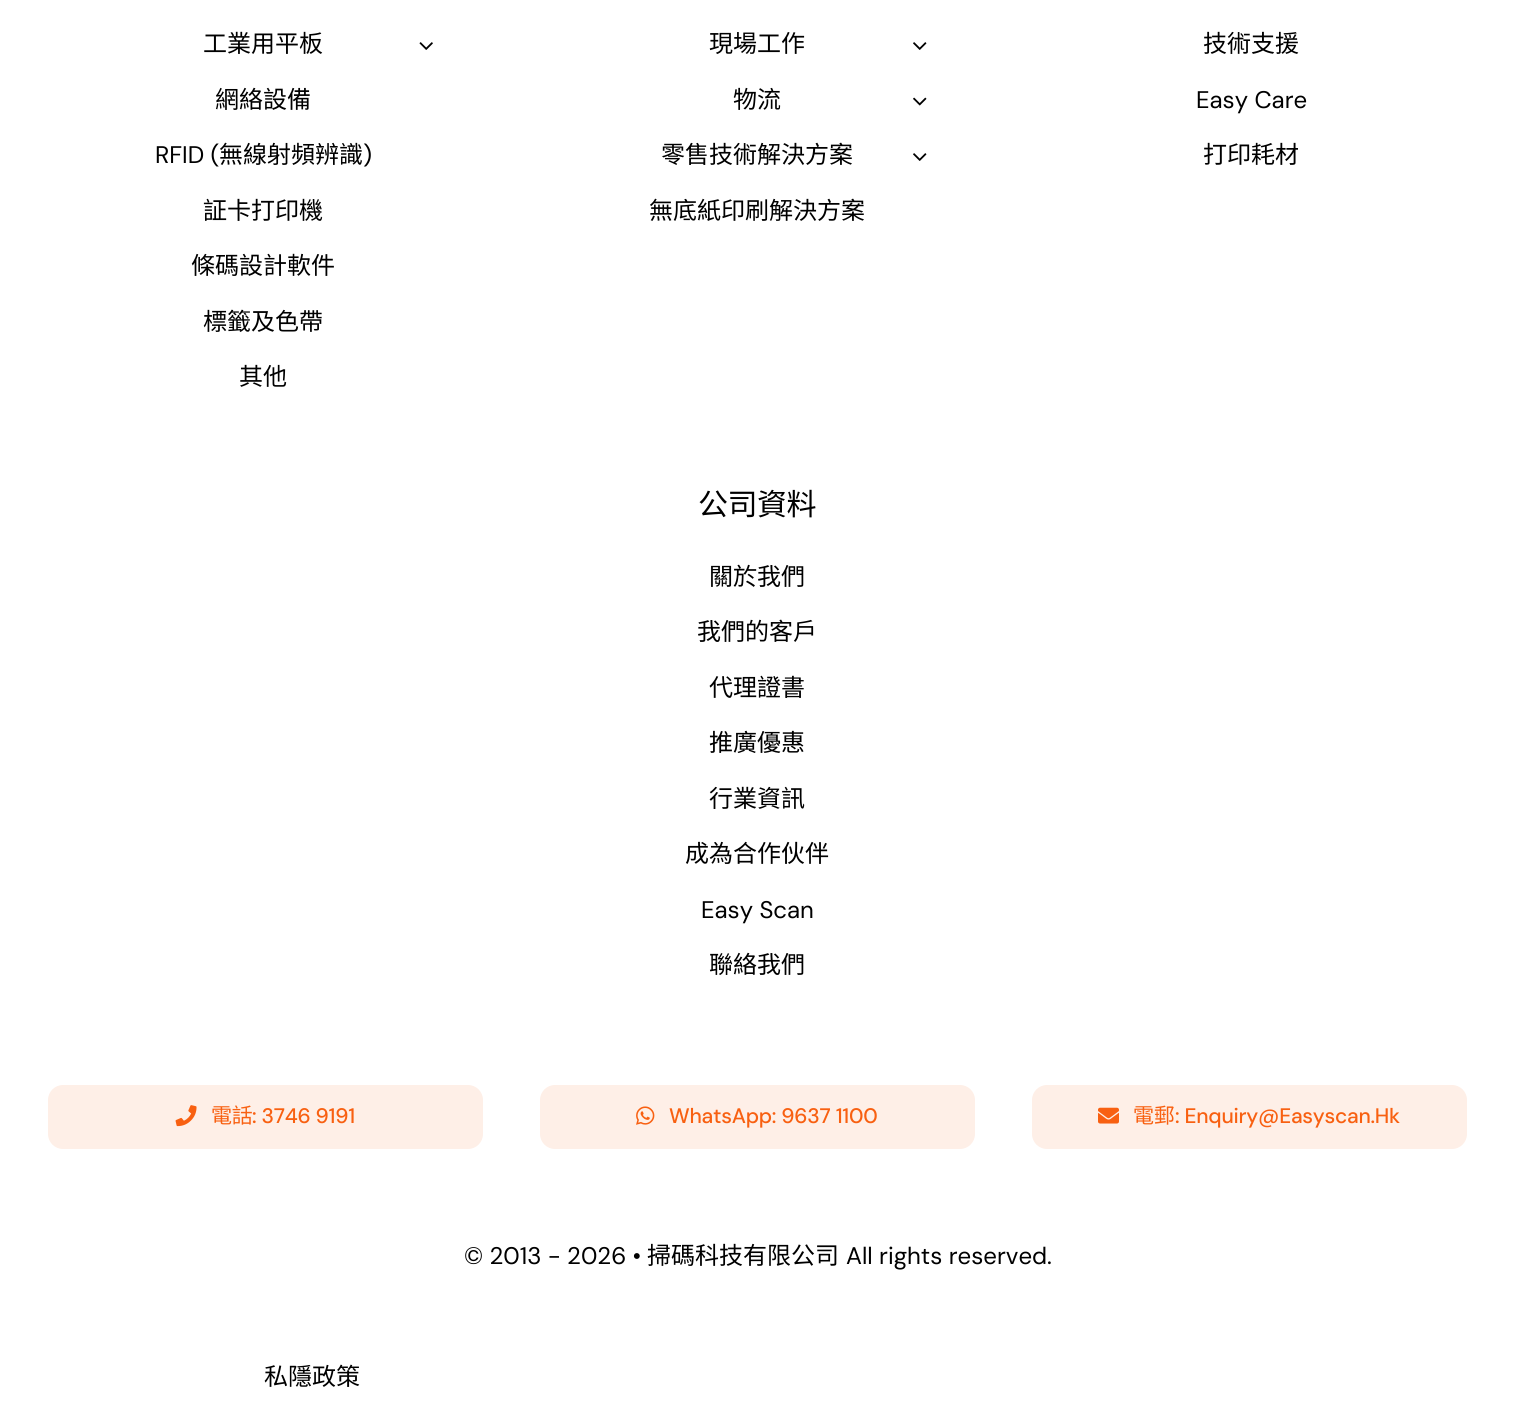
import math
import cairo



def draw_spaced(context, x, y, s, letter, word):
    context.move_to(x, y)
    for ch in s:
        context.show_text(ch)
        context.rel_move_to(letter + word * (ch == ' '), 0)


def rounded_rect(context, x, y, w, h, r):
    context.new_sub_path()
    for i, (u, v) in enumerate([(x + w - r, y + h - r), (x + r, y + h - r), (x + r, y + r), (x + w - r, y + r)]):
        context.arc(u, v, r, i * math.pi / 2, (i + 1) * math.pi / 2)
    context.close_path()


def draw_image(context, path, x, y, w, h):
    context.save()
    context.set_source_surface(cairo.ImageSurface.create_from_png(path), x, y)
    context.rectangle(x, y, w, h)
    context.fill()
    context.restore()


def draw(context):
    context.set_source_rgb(1, 1, 1)
    context.paint()
    draw_image(context, "images/1.png", 419, 42, 14, 8)
    draw_image(context, "images/2.png", 913, 42, 14, 8)
    draw_image(context, "images/3.png", 913, 97, 14, 9)
    draw_image(context, "images/2.png", 913, 153, 14, 8)
    context.set_source_rgb(254 / 255, 239 / 255, 231 / 255)
    rounded_rect(context, 48, 1085, 435, 64, 15)
    context.fill()
    draw_image(context, "images/4.png", 175, 1105, 22, 22)
    rounded_rect(context, 540, 1085, 435, 64, 15)
    context.fill()
    draw_image(context, "images/5.png", 636, 1106, 19, 19)
    rounded_rect(context, 1032, 1085, 435, 64, 15)
    context.fill()
    draw_image(context, "images/6.png", 1098, 1107, 21, 17)
    context.select_font_face("Noto Sans CJK HK")
    context.set_font_size(24)
    context.set_source_rgb(0, 0, 0)
    context.move_to(203, 52)
    context.show_text("工業用平板")
    context.move_to(215, 108)
    context.show_text("網絡設備")
    context.select_font_face("DM Sans")
    context.move_to(155, 163)
    context.show_text("RFID (")
    context.select_font_face("Noto Sans CJK HK")
    context.move_to(219, 163)
    context.show_text("無線射頻辨識")
    context.select_font_face("DM Sans")
    context.move_to(363, 163)
    context.show_text(")")
    context.select_font_face("Noto Sans CJK HK")
    context.move_to(203, 219)
    context.show_text("証卡打印機")
    context.move_to(191, 274)
    context.show_text("條碼設計軟件")
    context.move_to(203, 330)
    context.show_text("標籤及色帶")
    context.move_to(239, 385)
    context.show_text("其他")
    context.move_to(709, 52)
    context.show_text("現場工作")
    context.move_to(733, 108)
    context.show_text("物流")
    context.move_to(661, 163)
    context.show_text("零售技術解決方案")
    context.move_to(649, 219)
    context.show_text("無底紙印刷解決方案")
    context.move_to(1203, 52)
    context.show_text("技術支援")
    context.select_font_face("DM Sans")
    context.move_to(1196, 108)
    context.show_text("Easy Care")
    context.select_font_face("Noto Sans CJK HK")
    context.move_to(1203, 163)
    context.show_text("打印耗材")
    context.set_font_size(30)
    draw_spaced(context, 698, 515, "公司資料", -0.5, 0)
    context.set_font_size(24)
    context.move_to(709, 585)
    context.show_text("關於我們")
    context.move_to(697, 640)
    context.show_text("我們的客戶")
    context.move_to(709, 696)
    context.show_text("代理證書")
    context.move_to(709, 751)
    context.show_text("推廣優惠")
    context.move_to(709, 807)
    context.show_text("行業資訊")
    context.move_to(685, 862)
    context.show_text("成為合作伙伴")
    context.select_font_face("DM Sans")
    context.move_to(701, 918)
    context.show_text("Easy Scan")
    context.select_font_face("Noto Sans CJK HK")
    context.move_to(709, 973)
    context.show_text("聯絡我們")
    context.set_font_size(21)
    context.set_source_rgb(248 / 255, 96 / 255, 17 / 255)
    draw_spaced(context, 211, 1123, "電話", -0.25, 0)
    context.select_font_face("DM Sans Medium")
    draw_spaced(context, 252, 1123, ": 3746 9191", -0.25, 0)
    draw_spaced(context, 669, 1123, "WhatsApp: 9637 1100", -0.25, 0)
    context.select_font_face("Noto Sans CJK HK")
    draw_spaced(context, 1133, 1123, "電郵", -0.25, 0)
    context.select_font_face("DM Sans Medium")
    draw_spaced(context, 1175, 1123, ": Enquiry@Easyscan.Hk", -0.25, 0)
    context.select_font_face("DM Sans")
    context.set_font_size(24)
    context.set_source_rgb(0, 0, 0)
    context.move_to(464, 1264)
    context.show_text("© 2013 - 2026 •")
    context.select_font_face("Noto Sans CJK HK")
    context.move_to(647, 1264)
    context.show_text("掃碼科技有限公司")
    context.select_font_face("DM Sans")
    context.move_to(846, 1264)
    context.show_text("All rights reserved.")
    context.select_font_face("Noto Sans CJK HK")
    context.move_to(264, 1385)
    context.show_text("私隱政策")


surface = cairo.ImageSurface(cairo.Format.RGB24, 1515, 1413)
context = cairo.Context(surface)
options = cairo.FontOptions()
options.set_hint_metrics(cairo.HintMetrics.OFF)
options.set_hint_style(cairo.HintStyle.NONE)
context.set_font_options(options)
context.set_miter_limit(4)
draw(context)
surface.write_to_png("out.png")
